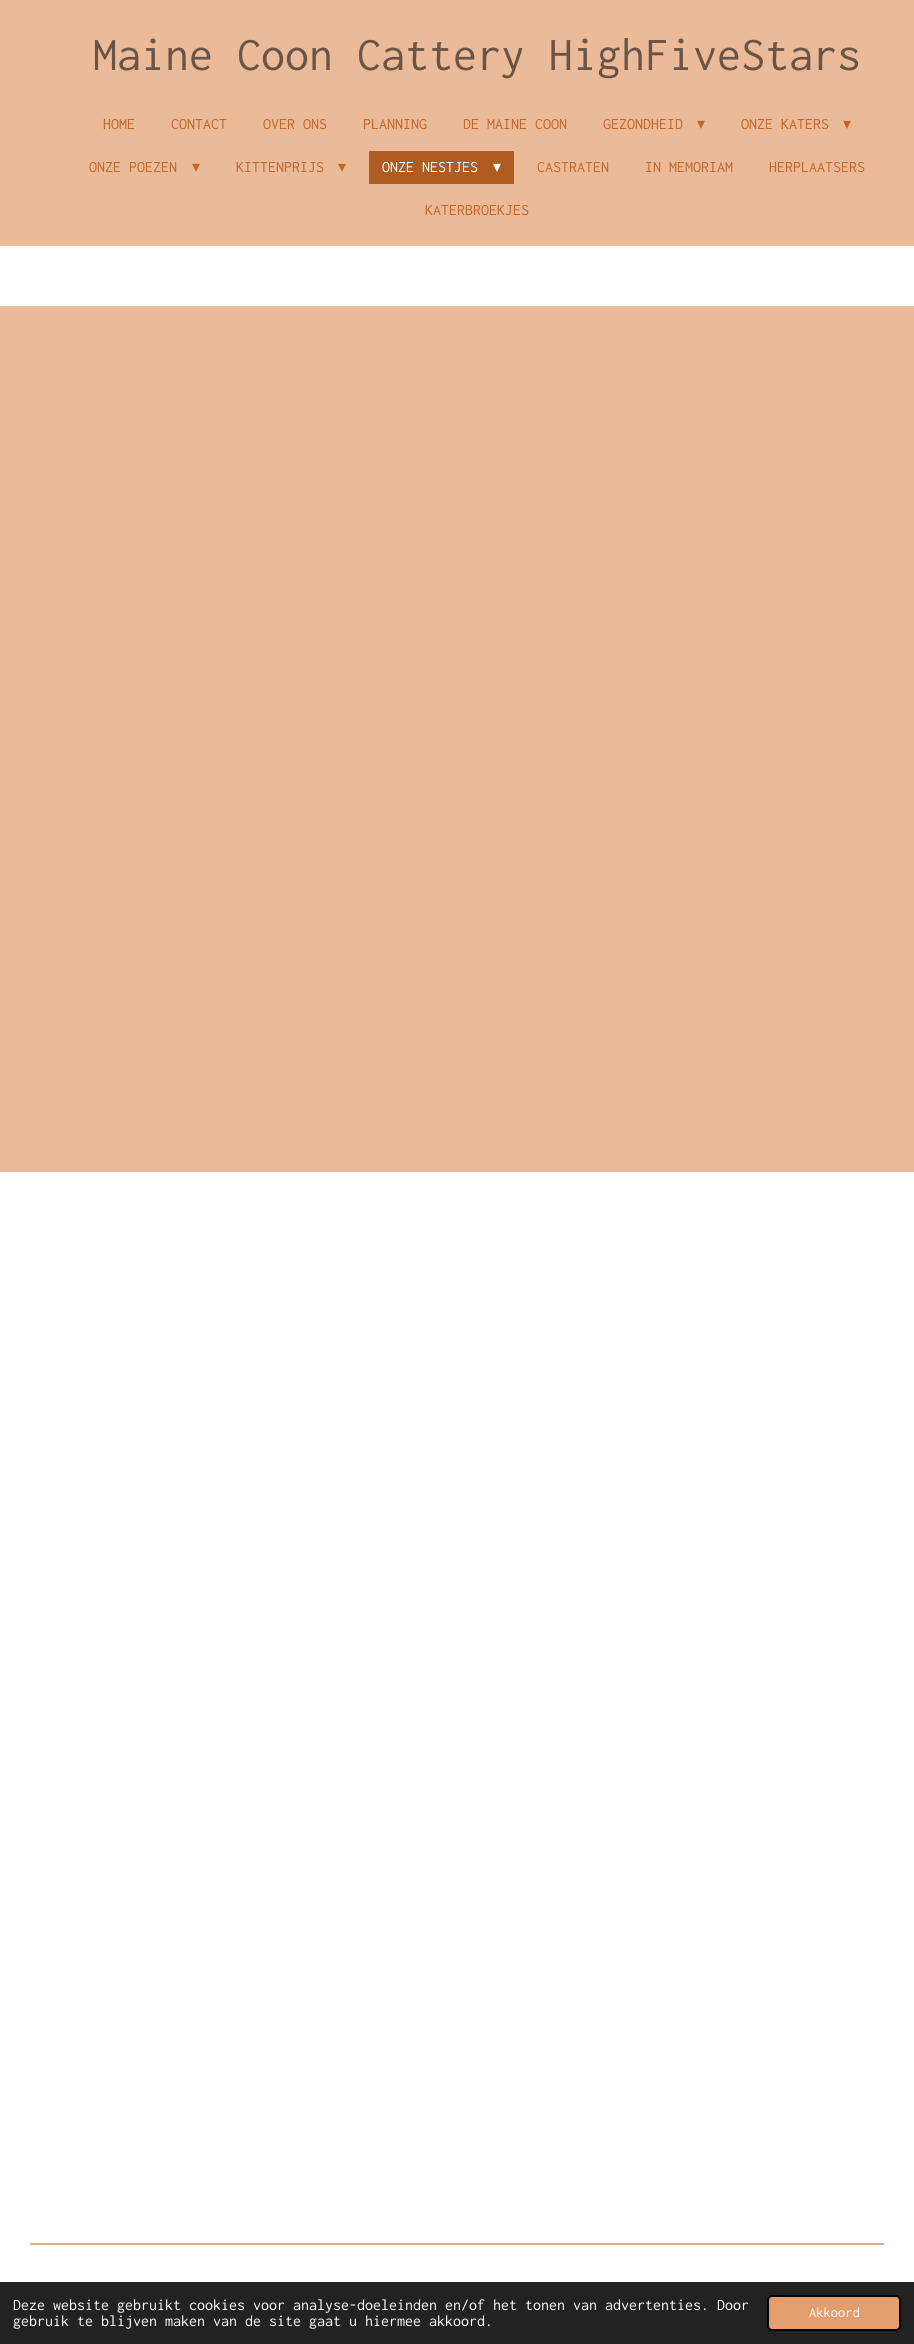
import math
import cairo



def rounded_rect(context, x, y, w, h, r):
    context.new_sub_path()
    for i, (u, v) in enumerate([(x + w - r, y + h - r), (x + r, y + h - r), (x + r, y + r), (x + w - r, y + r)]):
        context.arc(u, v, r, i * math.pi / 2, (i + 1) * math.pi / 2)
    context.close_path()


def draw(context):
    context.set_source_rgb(1, 1, 1)
    context.paint()
    context.set_source_rgb(235 / 255, 186 / 255, 153 / 255)
    context.rectangle(0, 0, 914, 1172)
    context.fill()
    context.set_source_rgb(175 / 255, 91 / 255, 34 / 255)
    context.rectangle(369, 151, 145, 33)
    context.fill()
    context.set_source_rgb(1, 1, 1)
    context.rectangle(0, 246, 914, 60)
    context.fill()
    context.set_source_rgb(231 / 255, 172 / 255, 132 / 255)
    context.rectangle(30, 2243, 854, 2)
    context.fill()
    context.set_source_rgb(34 / 255, 34 / 255, 34 / 255)
    context.rectangle(0, 2282, 914, 62)
    context.fill()
    context.set_source_rgb(227 / 255, 157 / 255, 110 / 255)
    rounded_rect(context, 768, 2296, 132, 34, 4)
    context.fill_preserve()
    context.set_source_rgb(0, 0, 0)
    context.stroke()
    context.select_font_face("Inconsolata")
    context.set_font_size(48)
    context.set_source_rgb(106 / 255, 84 / 255, 69 / 255)
    context.move_to(93, 70)
    context.show_text("Maine Coon Cattery HighFiveStars")
    context.set_font_size(16)
    context.set_source_rgb(196 / 255, 102 / 255, 39 / 255)
    context.move_to(103, 129)
    context.show_text("HOME")
    context.move_to(171, 129)
    context.show_text("CONTACT")
    context.move_to(263, 129)
    context.show_text("OVER ONS")
    context.move_to(363, 129)
    context.show_text("PLANNING")
    context.move_to(463, 129)
    context.show_text("DE MAINE COON")
    context.move_to(603, 129)
    context.show_text("GEZONDHEID")
    context.select_font_face("DejaVu Sans")
    context.move_to(697, 129)
    context.show_text("▾")
    context.select_font_face("Inconsolata")
    context.move_to(741, 129)
    context.show_text("ONZE KATERS")
    context.select_font_face("DejaVu Sans")
    context.move_to(843, 129)
    context.show_text("▾")
    context.select_font_face("Inconsolata")
    context.move_to(89, 172)
    context.show_text("ONZE POEZEN")
    context.select_font_face("DejaVu Sans")
    context.move_to(192, 172)
    context.show_text("▾")
    context.select_font_face("Inconsolata")
    context.move_to(236, 172)
    context.show_text("KITTENPRIJS")
    context.select_font_face("DejaVu Sans")
    context.move_to(338, 172)
    context.show_text("▾")
    context.select_font_face("Inconsolata")
    context.set_source_rgb(1, 1, 1)
    context.move_to(382, 172)
    context.show_text("ONZE NESTJES")
    context.select_font_face("DejaVu Sans")
    context.move_to(493, 172)
    context.show_text("▾")
    context.select_font_face("Inconsolata")
    context.set_source_rgb(196 / 255, 102 / 255, 39 / 255)
    context.move_to(537, 172)
    context.show_text("CASTRATEN")
    context.move_to(645, 172)
    context.show_text("IN MEMORIAM")
    context.move_to(769, 172)
    context.show_text("HERPLAATSERS")
    context.move_to(425, 215)
    context.show_text("KATERBROEKJES")
    context.set_source_rgb(1, 1, 1)
    context.move_to(13, 2310)
    context.show_text("Deze website gebruikt cookies voor analyse-doeleinden en/of het tonen van advertenties. Door")
    context.move_to(13, 2326)
    context.show_text("gebruik te blijven maken van de site gaat u hiermee akkoord.")
    context.set_font_size(14.5)
    context.move_to(809, 2317)
    context.show_text("Akkoord")


surface = cairo.ImageSurface(cairo.Format.RGB24, 914, 2344)
context = cairo.Context(surface)
options = cairo.FontOptions()
options.set_hint_metrics(cairo.HintMetrics.OFF)
options.set_hint_style(cairo.HintStyle.NONE)
context.set_font_options(options)
context.set_miter_limit(4)
draw(context)
surface.write_to_png("out.png")
